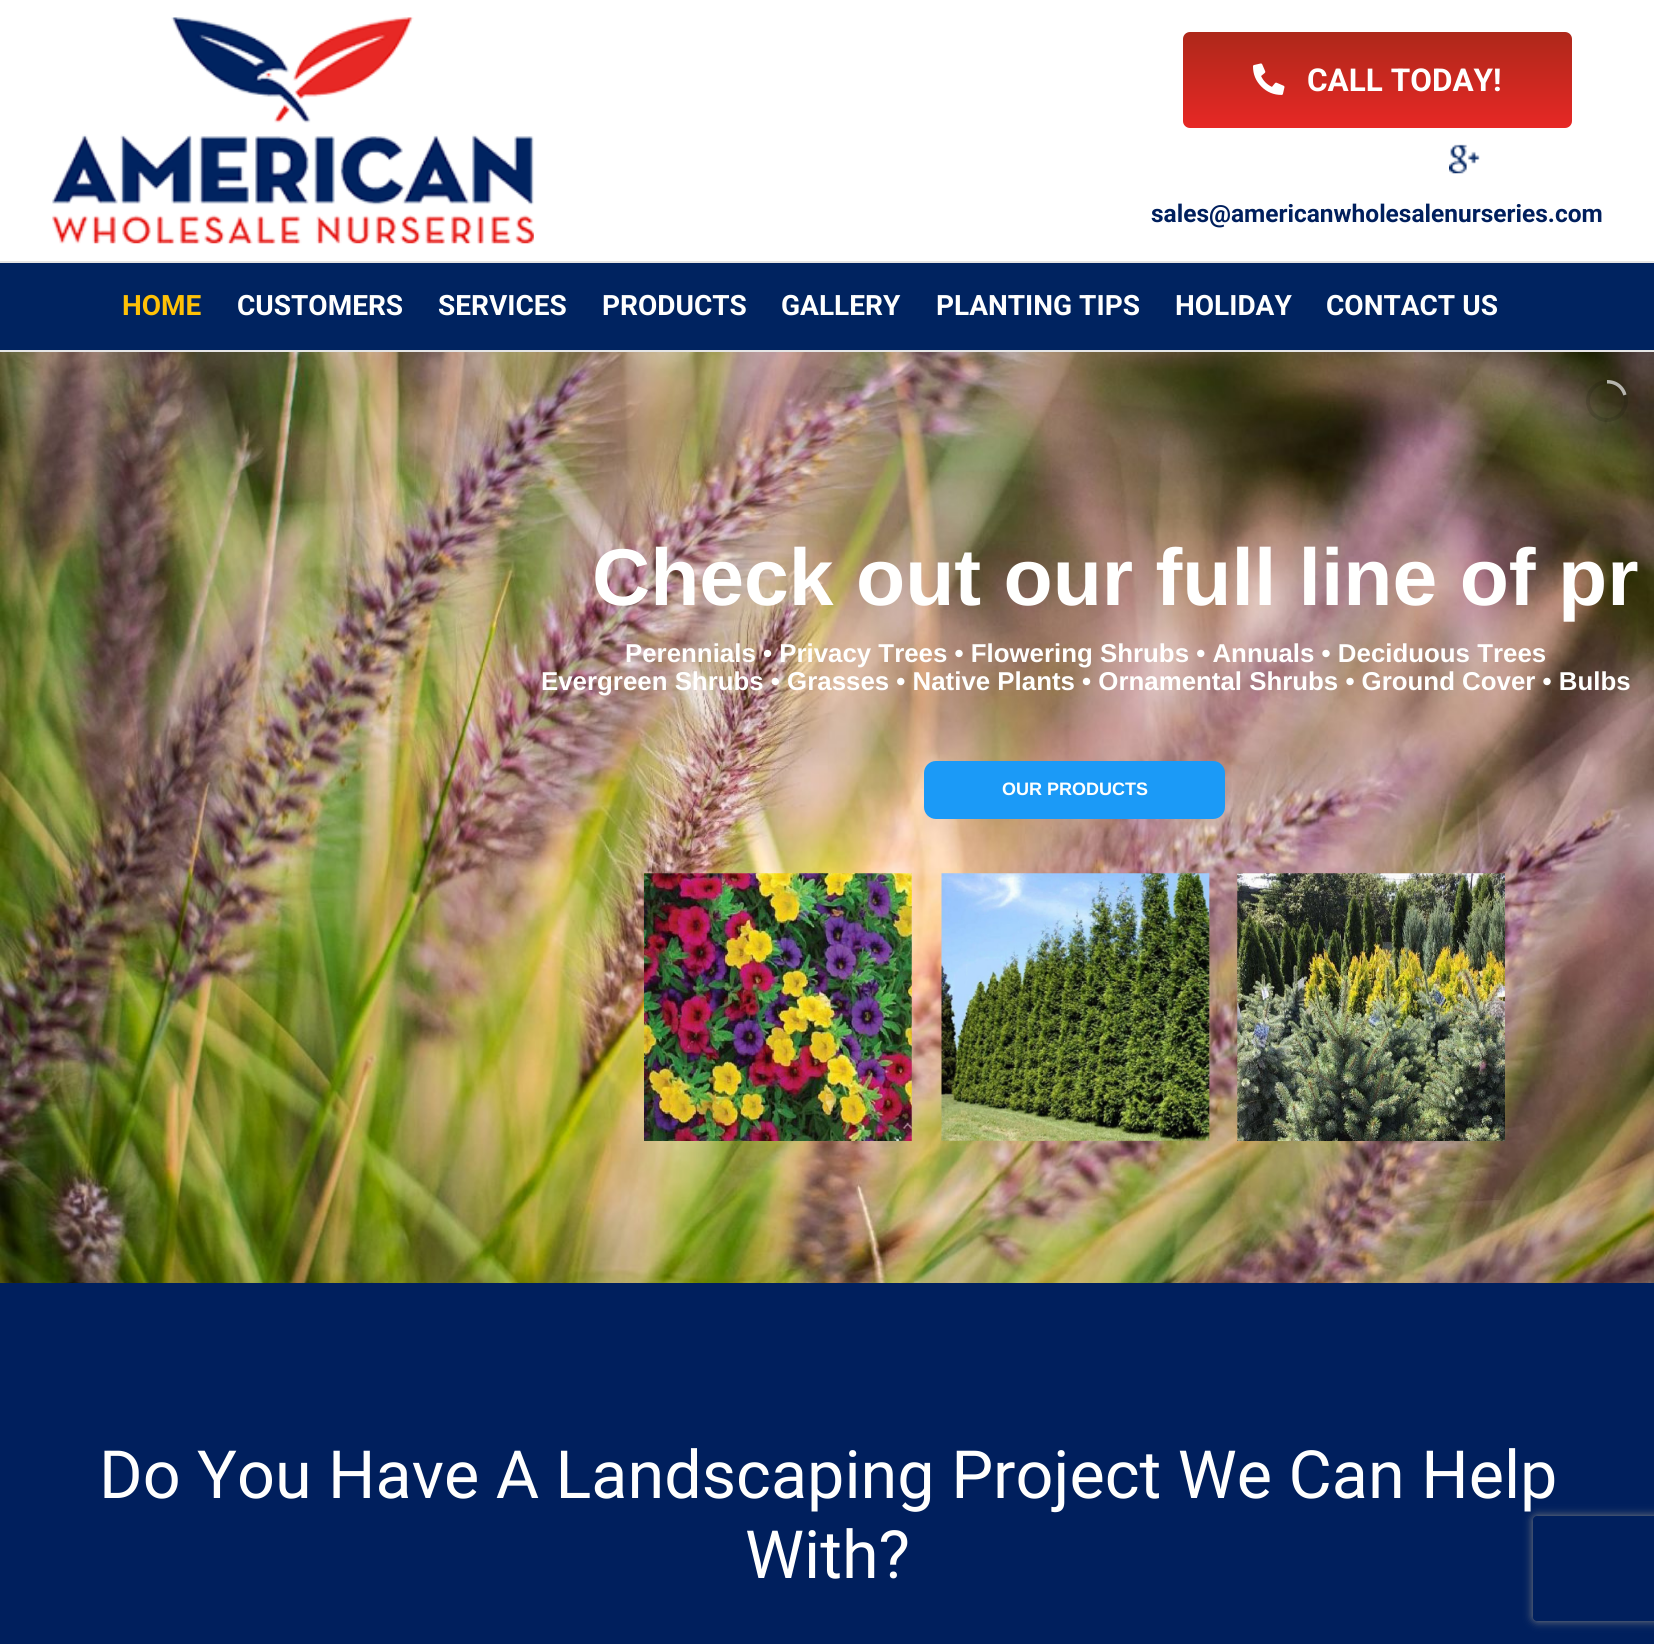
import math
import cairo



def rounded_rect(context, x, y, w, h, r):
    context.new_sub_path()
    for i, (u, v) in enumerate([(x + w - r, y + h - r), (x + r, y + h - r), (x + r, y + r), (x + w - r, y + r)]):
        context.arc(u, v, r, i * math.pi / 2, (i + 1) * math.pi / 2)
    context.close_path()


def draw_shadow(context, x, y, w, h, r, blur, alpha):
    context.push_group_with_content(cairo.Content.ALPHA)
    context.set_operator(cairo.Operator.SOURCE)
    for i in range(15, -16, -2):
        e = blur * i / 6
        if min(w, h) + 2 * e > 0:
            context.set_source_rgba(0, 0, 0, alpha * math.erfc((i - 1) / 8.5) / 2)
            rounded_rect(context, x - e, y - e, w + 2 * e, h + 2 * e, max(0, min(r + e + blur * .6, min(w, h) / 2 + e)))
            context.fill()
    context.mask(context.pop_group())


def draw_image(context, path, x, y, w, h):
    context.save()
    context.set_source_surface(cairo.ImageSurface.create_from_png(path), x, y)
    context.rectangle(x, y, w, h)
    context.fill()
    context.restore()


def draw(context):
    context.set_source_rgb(1, 1, 1)
    context.paint()
    context.set_source_rgb(229 / 255, 229 / 255, 229 / 255)
    context.rectangle(0, 261, 1654, 2)
    context.fill()
    draw_image(context, "images/1.png", 52, 17, 482, 227)
    gradient = cairo.LinearGradient(1377, 31, 1377, 128)
    gradient.add_color_stop_rgba(0, 173 / 255, 40 / 255, 26 / 255, 1)
    gradient.add_color_stop_rgba(1, 231 / 255, 40 / 255, 37 / 255, 1)
    context.set_source(gradient)
    rounded_rect(context, 1183, 32, 389, 96, 7)
    context.fill()
    draw_image(context, "images/2.png", 1253, 63, 32, 32)
    draw_image(context, "images/3.png", 1449, 144, 31, 30)
    context.set_source_rgb(0, 35 / 255, 96 / 255)
    context.rectangle(0, 263, 1654, 87)
    context.fill()
    context.set_source_rgb(229 / 255, 229 / 255, 229 / 255)
    context.rectangle(0, 350, 1654, 2)
    context.fill()
    draw_image(context, "images/4.png", 0, 352, 1654, 931)
    context.arc(1607, 401, 19, 0, 2 * math.pi)
    context.set_source_rgba(0, 0, 0, 0.13)
    context.set_line_width(4)
    context.stroke()
    context.save()
    context.rectangle(1607, 380, 21, 42)
    context.clip()
    context.new_path()
    context.move_to(1620.5, 374.5)
    context.line_to(1626.5, 394.5)
    context.line_to(1586.5, 407)
    context.line_to(1580.5, 387)
    context.close_path()
    context.clip()
    context.new_path()
    context.move_to(1625, 395)
    context.curve_to(1632.5, 419, 1595.5, 430.5, 1588, 406.5)
    context.curve_to(1580.5, 382.5, 1617.5, 371, 1625, 395)
    context.close_path()
    context.set_source_rgba(1, 1, 1, 0.65)
    context.set_line_width(3.5)
    context.stroke()
    context.restore()
    context.set_source_rgb(27 / 255, 154 / 255, 247 / 255)
    rounded_rect(context, 924, 761, 301, 58, 12)
    context.fill()
    draw_image(context, "images/5.png", 644, 873, 268, 268)
    draw_image(context, "images/6.png", 941, 873, 269, 268)
    draw_image(context, "images/7.png", 1237, 873, 268, 268)
    context.set_source_rgb(0, 31 / 255, 93 / 255)
    context.rectangle(0, 1283, 1654, 361)
    context.fill()
    context.save()
    context.set_fill_rule(cairo.FillRule.EVEN_ODD)
    context.new_path()
    context.move_to(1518, 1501)
    context.line_to(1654, 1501)
    context.line_to(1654, 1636)
    context.line_to(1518, 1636)
    context.close_path()
    context.move_to(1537, 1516)
    context.line_to(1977, 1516)
    context.curve_to(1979, 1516, 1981, 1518, 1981, 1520)
    context.line_to(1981, 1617)
    context.curve_to(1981, 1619, 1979, 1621, 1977, 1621)
    context.line_to(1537, 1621)
    context.curve_to(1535, 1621, 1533, 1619, 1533, 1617)
    context.line_to(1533, 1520)
    context.curve_to(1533, 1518, 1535, 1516, 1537, 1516)
    context.close_path()
    context.clip()
    context.set_source_rgb(128 / 255, 128 / 255, 128 / 255)
    draw_shadow(context, 1533, 1516, 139, 105, 4, 4.5, 1)
    context.restore()
    context.select_font_face("Roboto", cairo.FontSlant.NORMAL, cairo.FontWeight.BOLD)
    context.set_font_size(31.5)
    context.set_source_rgb(1, 1, 254 / 255)
    context.move_to(1307, 91)
    context.show_text("CALL TODAY!")
    context.set_font_size(24.5)
    context.set_source_rgb(0, 31 / 255, 93 / 255)
    context.move_to(1151, 222)
    context.show_text("sales@americanwholesalenurseries.com")
    context.set_font_size(28)
    context.set_source_rgb(1, 193 / 255, 7 / 255)
    context.move_to(122, 315)
    context.show_text("HOME")
    context.set_source_rgb(1, 1, 254 / 255)
    context.move_to(237, 315)
    context.show_text("CUSTOMERS")
    context.move_to(438, 315)
    context.show_text("SERVICES")
    context.move_to(602, 315)
    context.show_text("PRODUCTS")
    context.move_to(781, 315)
    context.show_text("GALLERY")
    context.move_to(936, 315)
    context.show_text("PLANTING TIPS")
    context.move_to(1175, 315)
    context.show_text("HOLIDAY")
    context.move_to(1326, 315)
    context.show_text("CONTACT US")
    context.select_font_face("Liberation Sans", cairo.FontSlant.NORMAL, cairo.FontWeight.BOLD)
    context.set_font_size(80.5)
    context.move_to(592, 605)
    context.show_text("Check out our full line of pr")
    context.set_font_size(25.85)
    context.move_to(625, 662)
    context.show_text("Perennials • Privacy Trees • Flowering Shrubs • Annuals • Deciduous Trees")
    context.move_to(541, 690)
    context.show_text("Evergreen Shrubs • Grasses • Native Plants • Ornamental Shrubs • Ground Cover • Bulbs")
    context.set_font_size(18)
    context.move_to(1002, 795)
    context.show_text("OUR PRODUCTS")
    context.select_font_face("Roboto")
    context.set_font_size(66.5)
    context.move_to(99, 1498)
    context.show_text("Do You Have A Landscaping Project We Can Help")
    context.move_to(745, 1578)
    context.show_text("With?")


surface = cairo.ImageSurface(cairo.Format.RGB24, 1654, 1644)
context = cairo.Context(surface)
options = cairo.FontOptions()
options.set_hint_metrics(cairo.HintMetrics.OFF)
options.set_hint_style(cairo.HintStyle.NONE)
context.set_font_options(options)
context.set_miter_limit(4)
draw(context)
surface.write_to_png("out.png")
